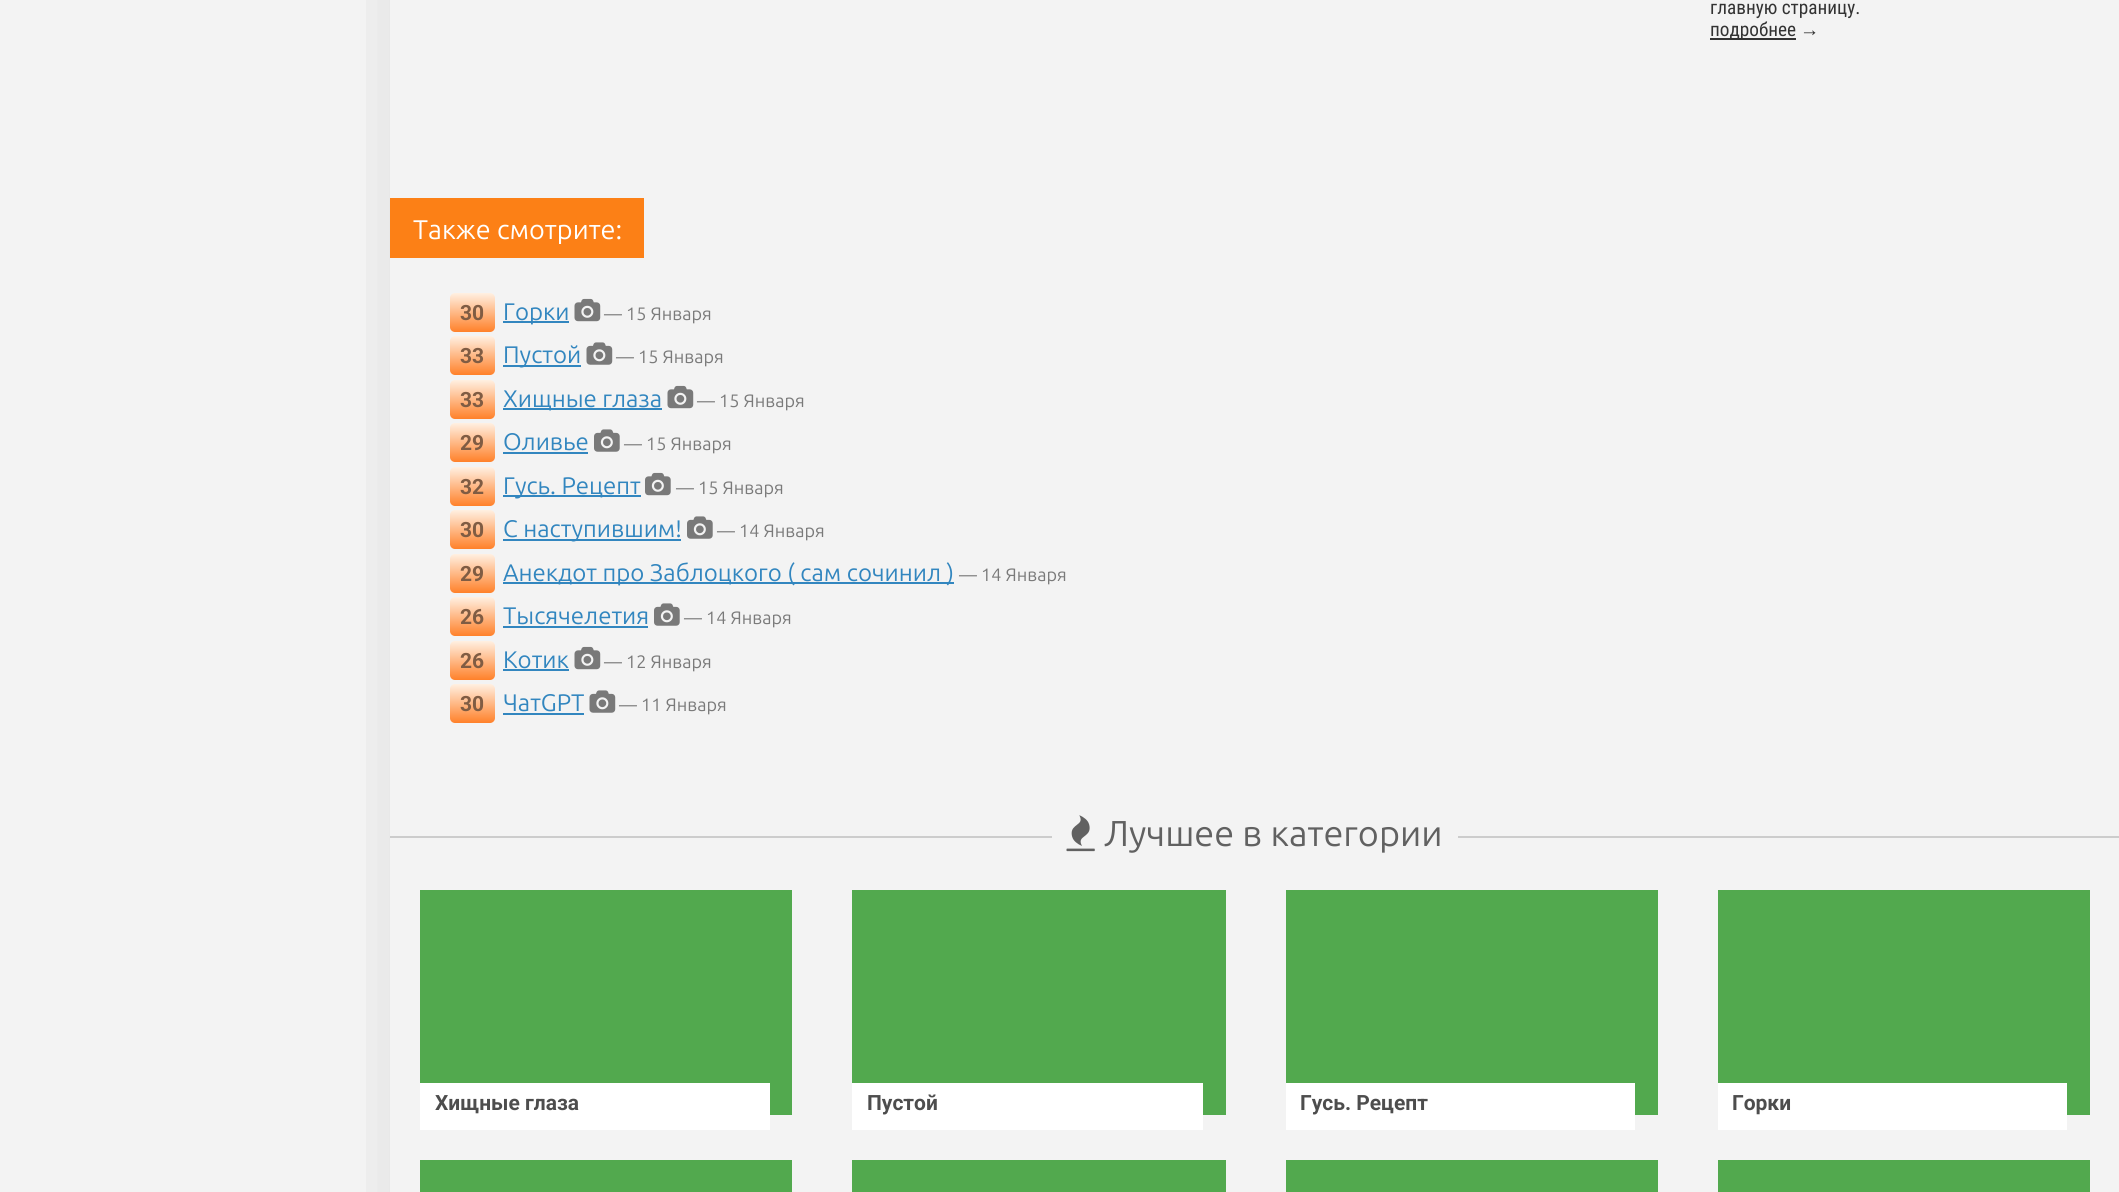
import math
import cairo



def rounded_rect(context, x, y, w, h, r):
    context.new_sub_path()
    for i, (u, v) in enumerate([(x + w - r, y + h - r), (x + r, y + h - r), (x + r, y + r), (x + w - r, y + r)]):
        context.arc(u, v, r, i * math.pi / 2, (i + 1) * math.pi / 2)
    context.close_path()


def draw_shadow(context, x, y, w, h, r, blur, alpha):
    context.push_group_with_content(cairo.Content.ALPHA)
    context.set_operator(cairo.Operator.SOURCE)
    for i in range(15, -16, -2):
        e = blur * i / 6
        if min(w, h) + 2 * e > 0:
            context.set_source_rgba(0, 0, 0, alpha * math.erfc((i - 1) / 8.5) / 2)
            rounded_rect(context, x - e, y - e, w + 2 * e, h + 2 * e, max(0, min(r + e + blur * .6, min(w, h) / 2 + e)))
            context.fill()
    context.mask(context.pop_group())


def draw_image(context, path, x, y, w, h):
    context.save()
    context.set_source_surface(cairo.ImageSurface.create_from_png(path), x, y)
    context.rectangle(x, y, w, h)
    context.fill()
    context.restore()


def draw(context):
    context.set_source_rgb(243 / 255, 243 / 255, 243 / 255)
    context.paint()
    context.save()
    context.rectangle(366, 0, 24, 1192)
    context.clip()
    context.set_source_rgb(0, 0, 0)
    draw_shadow(context, 395, -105, 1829, 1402, 0, 35, 0.1)
    context.restore()
    context.set_source_rgb(51 / 255, 51 / 255, 51 / 255)
    context.rectangle(1710, 38, 86, 2)
    context.fill()
    context.set_source_rgb(252 / 255, 128 / 255, 22 / 255)
    context.rectangle(390, 198, 254, 60)
    context.fill()
    gradient = cairo.LinearGradient(473, 293, 473, 332)
    gradient.add_color_stop_rgba(0, 1, 240 / 255, 226 / 255, 1)
    gradient.add_color_stop_rgba(1, 1, 129 / 255, 42 / 255, 1)
    context.set_source(gradient)
    rounded_rect(context, 450, 293, 45, 39, 5)
    context.fill()
    context.set_source_rgb(50 / 255, 134 / 255, 191 / 255)
    context.rectangle(503, 321, 66, 2)
    context.fill()
    draw_image(context, "images/1.png", 574, 298, 27, 24)
    gradient = cairo.LinearGradient(473, 336, 473, 375)
    gradient.add_color_stop_rgba(0, 1, 240 / 255, 226 / 255, 1)
    gradient.add_color_stop_rgba(1, 1, 129 / 255, 42 / 255, 1)
    context.set_source(gradient)
    rounded_rect(context, 450, 336, 45, 39, 5)
    context.fill()
    context.set_source_rgb(50 / 255, 134 / 255, 191 / 255)
    context.rectangle(503, 365, 78, 2)
    context.fill()
    draw_image(context, "images/2.png", 586, 342, 27, 23)
    gradient = cairo.LinearGradient(473, 380, 473, 419)
    gradient.add_color_stop_rgba(0, 1, 240 / 255, 226 / 255, 1)
    gradient.add_color_stop_rgba(1, 1, 129 / 255, 42 / 255, 1)
    context.set_source(gradient)
    rounded_rect(context, 450, 380, 45, 39, 5)
    context.fill()
    context.set_source_rgb(50 / 255, 134 / 255, 191 / 255)
    context.rectangle(503, 408, 159, 2)
    context.fill()
    draw_image(context, "images/1.png", 667, 385, 27, 24)
    gradient = cairo.LinearGradient(473, 423, 473, 462)
    gradient.add_color_stop_rgba(0, 1, 240 / 255, 226 / 255, 1)
    gradient.add_color_stop_rgba(1, 1, 129 / 255, 42 / 255, 1)
    context.set_source(gradient)
    rounded_rect(context, 450, 423, 45, 39, 5)
    context.fill()
    context.set_source_rgb(50 / 255, 134 / 255, 191 / 255)
    context.rectangle(503, 452, 85, 2)
    context.fill()
    draw_image(context, "images/3.png", 594, 429, 26, 23)
    gradient = cairo.LinearGradient(473, 467, 473, 506)
    gradient.add_color_stop_rgba(0, 1, 240 / 255, 226 / 255, 1)
    gradient.add_color_stop_rgba(1, 1, 129 / 255, 42 / 255, 1)
    context.set_source(gradient)
    rounded_rect(context, 450, 467, 45, 39, 5)
    context.fill()
    context.set_source_rgb(50 / 255, 134 / 255, 191 / 255)
    context.rectangle(503, 495, 138, 2)
    context.fill()
    draw_image(context, "images/4.png", 645, 472, 26, 24)
    gradient = cairo.LinearGradient(473, 510, 473, 549)
    gradient.add_color_stop_rgba(0, 1, 240 / 255, 226 / 255, 1)
    gradient.add_color_stop_rgba(1, 1, 129 / 255, 42 / 255, 1)
    context.set_source(gradient)
    rounded_rect(context, 450, 510, 45, 39, 5)
    context.fill()
    context.set_source_rgb(50 / 255, 134 / 255, 191 / 255)
    context.rectangle(503, 539, 178, 2)
    context.fill()
    draw_image(context, "images/3.png", 687, 516, 26, 23)
    gradient = cairo.LinearGradient(473, 554, 473, 593)
    gradient.add_color_stop_rgba(0, 1, 240 / 255, 226 / 255, 1)
    gradient.add_color_stop_rgba(1, 1, 129 / 255, 42 / 255, 1)
    context.set_source(gradient)
    rounded_rect(context, 450, 554, 45, 39, 5)
    context.fill()
    context.set_source_rgb(50 / 255, 134 / 255, 191 / 255)
    context.rectangle(503, 582, 451, 2)
    context.fill()
    gradient = cairo.LinearGradient(473, 597, 473, 636)
    gradient.add_color_stop_rgba(0, 1, 240 / 255, 226 / 255, 1)
    gradient.add_color_stop_rgba(1, 1, 129 / 255, 42 / 255, 1)
    context.set_source(gradient)
    rounded_rect(context, 450, 597, 45, 39, 5)
    context.fill()
    context.set_source_rgb(50 / 255, 134 / 255, 191 / 255)
    context.rectangle(503, 626, 145, 2)
    context.fill()
    draw_image(context, "images/3.png", 654, 603, 26, 23)
    gradient = cairo.LinearGradient(473, 641, 473, 680)
    gradient.add_color_stop_rgba(0, 1, 240 / 255, 226 / 255, 1)
    gradient.add_color_stop_rgba(1, 1, 129 / 255, 42 / 255, 1)
    context.set_source(gradient)
    rounded_rect(context, 450, 641, 45, 39, 5)
    context.fill()
    context.set_source_rgb(50 / 255, 134 / 255, 191 / 255)
    context.rectangle(503, 669, 66, 2)
    context.fill()
    draw_image(context, "images/1.png", 574, 646, 27, 24)
    gradient = cairo.LinearGradient(473, 684, 473, 723)
    gradient.add_color_stop_rgba(0, 1, 240 / 255, 226 / 255, 1)
    gradient.add_color_stop_rgba(1, 1, 129 / 255, 42 / 255, 1)
    context.set_source(gradient)
    rounded_rect(context, 450, 684, 45, 39, 5)
    context.fill()
    context.set_source_rgb(50 / 255, 134 / 255, 191 / 255)
    context.rectangle(503, 713, 81, 2)
    context.fill()
    draw_image(context, "images/2.png", 589, 690, 27, 23)
    context.set_source_rgb(204 / 255, 204 / 255, 204 / 255)
    context.rectangle(390, 836, 1729, 2)
    context.fill()
    context.set_source_rgb(243 / 255, 243 / 255, 243 / 255)
    context.rectangle(1052, 836, 406, 2)
    context.fill()
    draw_image(context, "images/5.png", 1066, 815, 29, 37)
    context.set_source_rgb(82 / 255, 169 / 255, 78 / 255)
    context.rectangle(420, 890, 372, 225)
    context.fill()
    context.set_source_rgb(1, 1, 1)
    context.rectangle(420, 1083, 350, 47)
    context.fill()
    context.set_source_rgb(82 / 255, 169 / 255, 78 / 255)
    context.rectangle(852, 890, 374, 225)
    context.fill()
    context.set_source_rgb(1, 1, 1)
    context.rectangle(852, 1083, 351, 47)
    context.fill()
    context.set_source_rgb(82 / 255, 169 / 255, 78 / 255)
    context.rectangle(1286, 890, 372, 225)
    context.fill()
    context.set_source_rgb(1, 1, 1)
    context.rectangle(1286, 1083, 349, 47)
    context.fill()
    context.set_source_rgb(82 / 255, 169 / 255, 78 / 255)
    context.rectangle(1718, 890, 372, 225)
    context.fill()
    context.set_source_rgb(1, 1, 1)
    context.rectangle(1718, 1083, 349, 47)
    context.fill()
    context.set_source_rgb(82 / 255, 169 / 255, 78 / 255)
    context.rectangle(420, 1160, 372, 32)
    context.fill()
    context.rectangle(852, 1160, 374, 32)
    context.fill()
    context.rectangle(1286, 1160, 372, 32)
    context.fill()
    context.rectangle(1718, 1160, 372, 32)
    context.fill()
    context.select_font_face("Roboto Condensed")
    context.set_font_size(19.25)
    context.set_source_rgb(51 / 255, 51 / 255, 51 / 255)
    context.move_to(1710, 14)
    context.show_text("главную страницу.")
    context.move_to(1710, 36)
    context.show_text("подробнее")
    context.select_font_face("Liberation Sans")
    context.move_to(1800, 36)
    context.show_text("→")
    context.select_font_face("Ubuntu")
    context.set_font_size(27)
    context.set_source_rgb(1, 1, 1)
    context.move_to(413, 239)
    context.show_text("Также смотрите:")
    context.select_font_face("Roboto", cairo.FontSlant.NORMAL, cairo.FontWeight.BOLD)
    context.set_font_size(21)
    context.set_source_rgb(128 / 255, 92 / 255, 67 / 255)
    context.move_to(460, 320)
    context.show_text("30")
    context.select_font_face("Ubuntu")
    context.set_font_size(24)
    context.set_source_rgb(50 / 255, 134 / 255, 191 / 255)
    context.move_to(503, 320)
    context.show_text("Горки")
    context.set_font_size(18)
    context.set_source_rgb(122 / 255, 122 / 255, 122 / 255)
    context.move_to(604, 320)
    context.show_text("— 15 Января")
    context.select_font_face("Roboto", cairo.FontSlant.NORMAL, cairo.FontWeight.BOLD)
    context.set_font_size(21)
    context.set_source_rgb(128 / 255, 92 / 255, 67 / 255)
    context.move_to(460, 363)
    context.show_text("33")
    context.select_font_face("Ubuntu")
    context.set_font_size(24)
    context.set_source_rgb(50 / 255, 134 / 255, 191 / 255)
    context.move_to(503, 363)
    context.show_text("Пустой")
    context.set_font_size(18)
    context.set_source_rgb(122 / 255, 122 / 255, 122 / 255)
    context.move_to(616, 363)
    context.show_text("— 15 Января")
    context.select_font_face("Roboto", cairo.FontSlant.NORMAL, cairo.FontWeight.BOLD)
    context.set_font_size(21)
    context.set_source_rgb(128 / 255, 92 / 255, 67 / 255)
    context.move_to(460, 407)
    context.show_text("33")
    context.select_font_face("Ubuntu")
    context.set_font_size(24)
    context.set_source_rgb(50 / 255, 134 / 255, 191 / 255)
    context.move_to(503, 407)
    context.show_text("Хищные глаза")
    context.set_font_size(18)
    context.set_source_rgb(122 / 255, 122 / 255, 122 / 255)
    context.move_to(697, 407)
    context.show_text("— 15 Января")
    context.select_font_face("Roboto", cairo.FontSlant.NORMAL, cairo.FontWeight.BOLD)
    context.set_font_size(21)
    context.set_source_rgb(128 / 255, 92 / 255, 67 / 255)
    context.move_to(460, 450)
    context.show_text("29")
    context.select_font_face("Ubuntu")
    context.set_font_size(24)
    context.set_source_rgb(50 / 255, 134 / 255, 191 / 255)
    context.move_to(503, 450)
    context.show_text("Оливье")
    context.set_font_size(18)
    context.set_source_rgb(122 / 255, 122 / 255, 122 / 255)
    context.move_to(624, 450)
    context.show_text("— 15 Января")
    context.select_font_face("Roboto", cairo.FontSlant.NORMAL, cairo.FontWeight.BOLD)
    context.set_font_size(21)
    context.set_source_rgb(128 / 255, 92 / 255, 67 / 255)
    context.move_to(460, 494)
    context.show_text("32")
    context.select_font_face("Ubuntu")
    context.set_font_size(24)
    context.set_source_rgb(50 / 255, 134 / 255, 191 / 255)
    context.move_to(503, 494)
    context.show_text("Гусь. Рецепт")
    context.set_font_size(18)
    context.set_source_rgb(122 / 255, 122 / 255, 122 / 255)
    context.move_to(676, 494)
    context.show_text("— 15 Января")
    context.select_font_face("Roboto", cairo.FontSlant.NORMAL, cairo.FontWeight.BOLD)
    context.set_font_size(21)
    context.set_source_rgb(128 / 255, 92 / 255, 67 / 255)
    context.move_to(460, 537)
    context.show_text("30")
    context.select_font_face("Ubuntu")
    context.set_font_size(24)
    context.set_source_rgb(50 / 255, 134 / 255, 191 / 255)
    context.move_to(503, 537)
    context.show_text("С нaступившим!")
    context.set_font_size(18)
    context.set_source_rgb(122 / 255, 122 / 255, 122 / 255)
    context.move_to(717, 537)
    context.show_text("— 14 Января")
    context.select_font_face("Roboto", cairo.FontSlant.NORMAL, cairo.FontWeight.BOLD)
    context.set_font_size(21)
    context.set_source_rgb(128 / 255, 92 / 255, 67 / 255)
    context.move_to(460, 581)
    context.show_text("29")
    context.select_font_face("Ubuntu")
    context.set_font_size(24)
    context.set_source_rgb(50 / 255, 134 / 255, 191 / 255)
    context.move_to(503, 581)
    context.show_text("Анекдот про Заблоцкого ( сам сочинил )")
    context.set_font_size(18)
    context.set_source_rgb(122 / 255, 122 / 255, 122 / 255)
    context.move_to(959, 581)
    context.show_text("— 14 Января")
    context.select_font_face("Roboto", cairo.FontSlant.NORMAL, cairo.FontWeight.BOLD)
    context.set_font_size(21)
    context.set_source_rgb(128 / 255, 92 / 255, 67 / 255)
    context.move_to(460, 624)
    context.show_text("26")
    context.select_font_face("Ubuntu")
    context.set_font_size(24)
    context.set_source_rgb(50 / 255, 134 / 255, 191 / 255)
    context.move_to(503, 624)
    context.show_text("Тысячелетия")
    context.set_font_size(18)
    context.set_source_rgb(122 / 255, 122 / 255, 122 / 255)
    context.move_to(684, 624)
    context.show_text("— 14 Января")
    context.select_font_face("Roboto", cairo.FontSlant.NORMAL, cairo.FontWeight.BOLD)
    context.set_font_size(21)
    context.set_source_rgb(128 / 255, 92 / 255, 67 / 255)
    context.move_to(460, 668)
    context.show_text("26")
    context.select_font_face("Ubuntu")
    context.set_font_size(24)
    context.set_source_rgb(50 / 255, 134 / 255, 191 / 255)
    context.move_to(503, 668)
    context.show_text("Котик")
    context.set_font_size(18)
    context.set_source_rgb(122 / 255, 122 / 255, 122 / 255)
    context.move_to(604, 668)
    context.show_text("— 12 Января")
    context.select_font_face("Roboto", cairo.FontSlant.NORMAL, cairo.FontWeight.BOLD)
    context.set_font_size(21)
    context.set_source_rgb(128 / 255, 92 / 255, 67 / 255)
    context.move_to(460, 711)
    context.show_text("30")
    context.select_font_face("Ubuntu")
    context.set_font_size(24)
    context.set_source_rgb(50 / 255, 134 / 255, 191 / 255)
    context.move_to(503, 711)
    context.show_text("ЧатGPT")
    context.set_font_size(18)
    context.set_source_rgb(122 / 255, 122 / 255, 122 / 255)
    context.move_to(619, 711)
    context.show_text("— 11 Января")
    context.set_font_size(36)
    context.set_source_rgb(97 / 255, 97 / 255, 97 / 255)
    context.move_to(1104, 846)
    context.show_text("Лучшее в категории")
    context.select_font_face("Roboto", cairo.FontSlant.NORMAL, cairo.FontWeight.BOLD)
    context.set_font_size(21)
    context.set_source_rgb(77 / 255, 77 / 255, 77 / 255)
    context.move_to(435, 1110)
    context.show_text("Хищные глаза")
    context.move_to(867, 1110)
    context.show_text("Пустой")
    context.move_to(1300, 1110)
    context.show_text("Гусь. Рецепт")
    context.move_to(1732, 1110)
    context.show_text("Горки")


surface = cairo.ImageSurface(cairo.Format.RGB24, 2119, 1192)
context = cairo.Context(surface)
options = cairo.FontOptions()
options.set_hint_metrics(cairo.HintMetrics.OFF)
options.set_hint_style(cairo.HintStyle.NONE)
context.set_font_options(options)
context.set_miter_limit(4)
draw(context)
surface.write_to_png("out.png")
